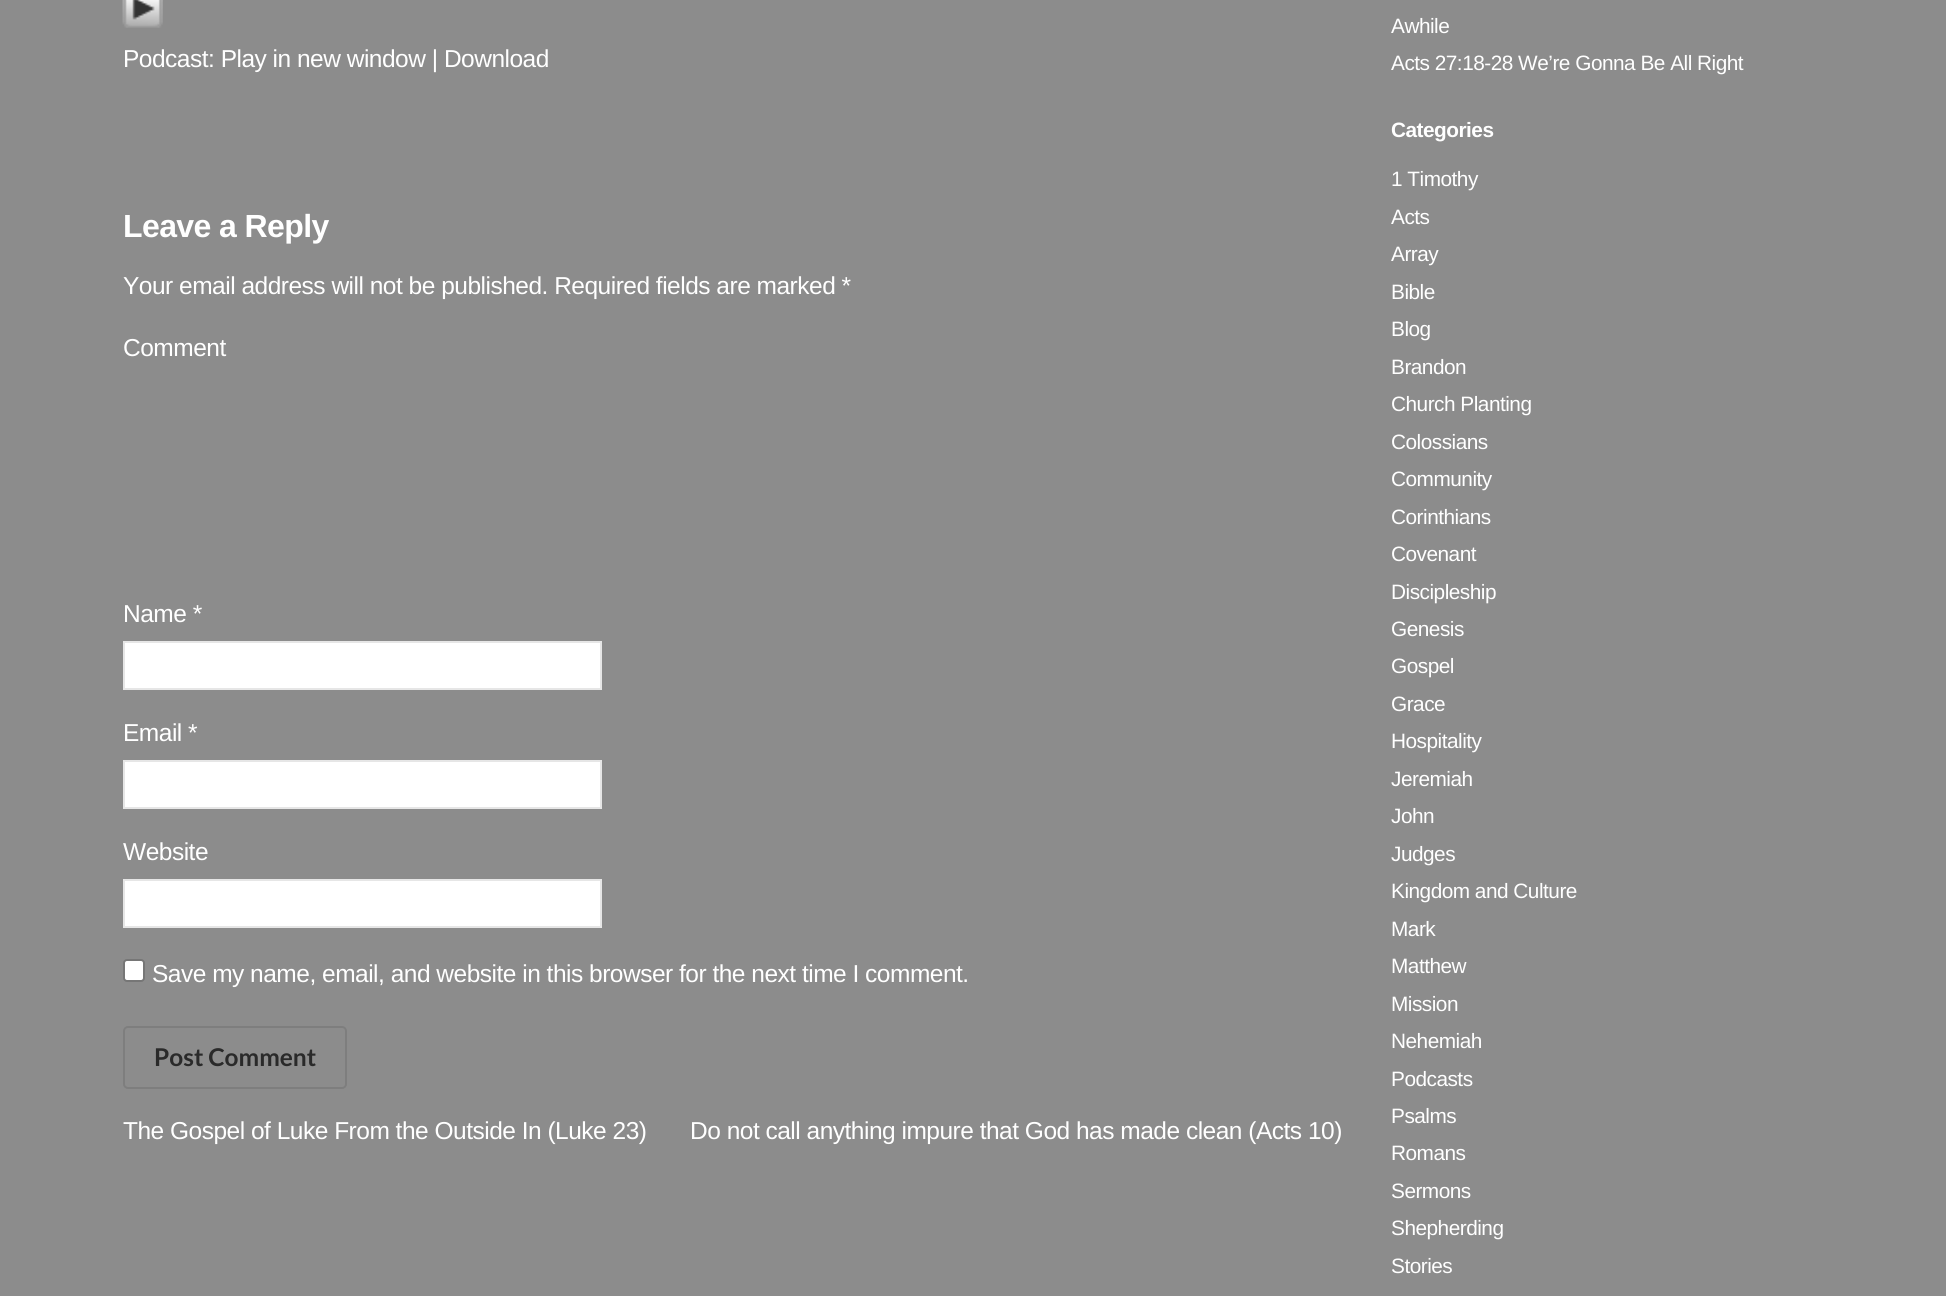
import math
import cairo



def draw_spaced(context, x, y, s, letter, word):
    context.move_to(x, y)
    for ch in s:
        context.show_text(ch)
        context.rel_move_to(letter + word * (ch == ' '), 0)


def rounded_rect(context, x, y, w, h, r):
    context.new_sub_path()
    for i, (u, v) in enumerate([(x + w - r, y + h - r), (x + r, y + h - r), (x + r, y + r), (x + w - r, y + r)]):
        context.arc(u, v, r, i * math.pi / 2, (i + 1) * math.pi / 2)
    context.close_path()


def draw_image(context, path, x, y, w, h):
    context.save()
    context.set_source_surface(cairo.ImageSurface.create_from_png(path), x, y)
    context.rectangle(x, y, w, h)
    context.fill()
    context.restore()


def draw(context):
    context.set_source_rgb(140 / 255, 140 / 255, 140 / 255)
    context.paint()
    draw_image(context, "images/1.png", 122, 0, 41, 28)
    context.set_source_rgb(1, 1, 1)
    context.rectangle(124, 642, 477, 47)
    context.fill_preserve()
    context.set_source_rgb(230 / 255, 230 / 255, 230 / 255)
    context.stroke()
    context.set_source_rgb(1, 1, 1)
    context.rectangle(124, 761, 477, 47)
    context.fill_preserve()
    context.set_source_rgb(230 / 255, 230 / 255, 230 / 255)
    context.stroke()
    context.set_source_rgb(1, 1, 1)
    context.rectangle(124, 880, 477, 47)
    context.fill_preserve()
    context.set_source_rgb(230 / 255, 230 / 255, 230 / 255)
    context.stroke()
    context.set_source_rgb(1, 1, 1)
    rounded_rect(context, 124, 960, 20, 21, 3)
    context.fill_preserve()
    context.set_source_rgb(118 / 255, 118 / 255, 118 / 255)
    context.stroke()
    rounded_rect(context, 124, 1027, 222, 61, 4)
    context.set_source_rgb(126 / 255, 126 / 255, 126 / 255)
    context.stroke()
    context.select_font_face("Liberation Sans")
    context.set_font_size(24.5)
    context.set_source_rgb(1, 1, 1)
    draw_spaced(context, 123, 67, "Podcast: Play in new window | Download", -0.5, 0)
    context.select_font_face("Liberation Sans", cairo.FontSlant.NORMAL, cairo.FontWeight.BOLD)
    context.set_font_size(32)
    draw_spaced(context, 123, 237, "Leave a Reply", -0.6, 0)
    context.select_font_face("Liberation Sans")
    context.set_font_size(24.5)
    draw_spaced(context, 123, 294, "Your email address will not be published. Required fields are marked *", -0.5, 0)
    draw_spaced(context, 123, 356, "Comment", -0.5, 0)
    draw_spaced(context, 123, 622, "Name *", -0.5, 0)
    draw_spaced(context, 123, 741, "Email *", -0.5, 0)
    draw_spaced(context, 123, 860, "Website", -0.5, 0)
    draw_spaced(context, 152, 982, "Save my name, email, and website in this browser for the next time I comment.", -0.5, 0)
    context.select_font_face("Lato", cairo.FontSlant.NORMAL, cairo.FontWeight.BOLD)
    context.set_source_rgb(42 / 255, 42 / 255, 42 / 255)
    context.move_to(154, 1066)
    context.show_text("Post Comment")
    context.select_font_face("Liberation Sans")
    context.set_source_rgb(1, 1, 1)
    draw_spaced(context, 123, 1139, "The Gospel of Luke From the Outside In (Luke 23)", -0.5, 0)
    draw_spaced(context, 690, 1139, "Do not call anything impure that God has made clean (Acts 10)", -0.5, 0)
    context.set_font_size(20.8)
    draw_spaced(context, 1391, 33, "Awhile", -0.5, 0)
    draw_spaced(context, 1391, 70, "Acts 27:18-28 We’re Gonna Be All Right", -0.5, 0)
    context.select_font_face("Liberation Sans", cairo.FontSlant.NORMAL, cairo.FontWeight.BOLD)
    draw_spaced(context, 1391, 137, "Categories", -0.5, 0)
    context.select_font_face("Liberation Sans")
    draw_spaced(context, 1391, 186, "1 Timothy", -0.5, 0)
    draw_spaced(context, 1391, 224, "Acts", -0.5, 0)
    draw_spaced(context, 1391, 261, "Array", -0.5, 0)
    draw_spaced(context, 1391, 299, "Bible", -0.5, 0)
    draw_spaced(context, 1391, 336, "Blog", -0.5, 0)
    draw_spaced(context, 1391, 374, "Brandon", -0.5, 0)
    draw_spaced(context, 1391, 411, "Church Planting", -0.5, 0)
    draw_spaced(context, 1391, 449, "Colossians", -0.5, 0)
    draw_spaced(context, 1391, 486, "Community", -0.5, 0)
    draw_spaced(context, 1391, 524, "Corinthians", -0.5, 0)
    draw_spaced(context, 1391, 561, "Covenant", -0.5, 0)
    draw_spaced(context, 1391, 599, "Discipleship", -0.5, 0)
    draw_spaced(context, 1391, 636, "Genesis", -0.5, 0)
    draw_spaced(context, 1391, 673, "Gospel", -0.5, 0)
    draw_spaced(context, 1391, 711, "Grace", -0.5, 0)
    draw_spaced(context, 1391, 748, "Hospitality", -0.5, 0)
    draw_spaced(context, 1391, 786, "Jeremiah", -0.5, 0)
    draw_spaced(context, 1391, 823, "John", -0.5, 0)
    draw_spaced(context, 1391, 861, "Judges", -0.5, 0)
    draw_spaced(context, 1391, 898, "Kingdom and Culture", -0.5, 0)
    draw_spaced(context, 1391, 936, "Mark", -0.5, 0)
    draw_spaced(context, 1391, 973, "Matthew", -0.5, 0)
    draw_spaced(context, 1391, 1011, "Mission", -0.5, 0)
    draw_spaced(context, 1391, 1048, "Nehemiah", -0.5, 0)
    draw_spaced(context, 1391, 1086, "Podcasts", -0.5, 0)
    draw_spaced(context, 1391, 1123, "Psalms", -0.5, 0)
    draw_spaced(context, 1391, 1160, "Romans", -0.5, 0)
    draw_spaced(context, 1391, 1198, "Sermons", -0.5, 0)
    draw_spaced(context, 1391, 1235, "Shepherding", -0.5, 0)
    draw_spaced(context, 1391, 1273, "Stories", -0.5, 0)


surface = cairo.ImageSurface(cairo.Format.RGB24, 1946, 1296)
context = cairo.Context(surface)
options = cairo.FontOptions()
options.set_hint_metrics(cairo.HintMetrics.OFF)
options.set_hint_style(cairo.HintStyle.NONE)
context.set_font_options(options)
context.set_miter_limit(4)
draw(context)
surface.write_to_png("out.png")
